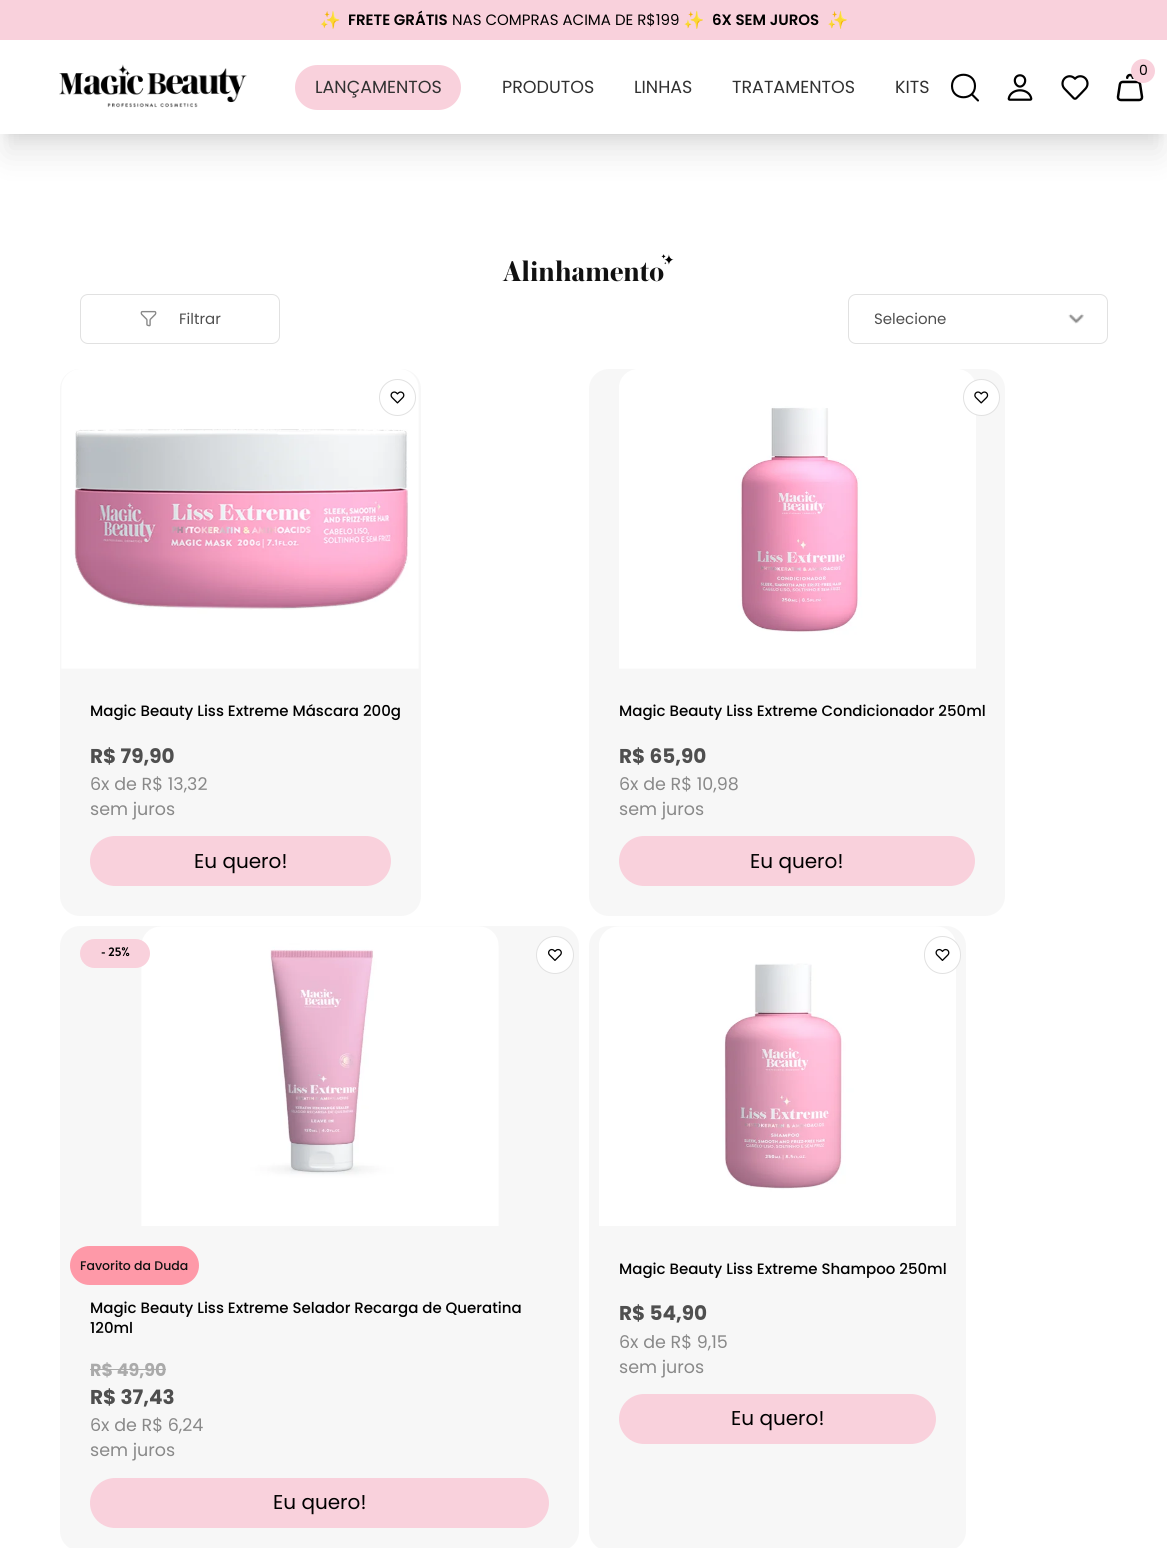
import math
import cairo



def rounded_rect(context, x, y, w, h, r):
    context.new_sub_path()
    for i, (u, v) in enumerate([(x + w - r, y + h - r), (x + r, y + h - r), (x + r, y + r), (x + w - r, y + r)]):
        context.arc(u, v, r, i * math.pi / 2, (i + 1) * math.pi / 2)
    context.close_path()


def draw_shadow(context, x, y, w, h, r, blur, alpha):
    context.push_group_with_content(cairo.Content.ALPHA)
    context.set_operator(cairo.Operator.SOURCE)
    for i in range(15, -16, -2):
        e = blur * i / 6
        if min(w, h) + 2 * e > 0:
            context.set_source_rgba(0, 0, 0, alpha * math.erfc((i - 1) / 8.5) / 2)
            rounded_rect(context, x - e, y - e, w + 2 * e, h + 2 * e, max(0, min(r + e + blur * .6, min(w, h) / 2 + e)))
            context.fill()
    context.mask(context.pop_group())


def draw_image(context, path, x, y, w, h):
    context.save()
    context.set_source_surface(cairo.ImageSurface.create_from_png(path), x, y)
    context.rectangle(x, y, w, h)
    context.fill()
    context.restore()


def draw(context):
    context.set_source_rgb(1, 1, 1)
    context.paint()
    context.set_source_rgb(0, 0, 0)
    draw_shadow(context, 8, 18, 1152, 118, 0, 6, 0.1)
    draw_shadow(context, 6, 31, 1155, 122, 0, 15.5, 0.1)
    context.set_source_rgb(1, 1, 1)
    context.rectangle(0, 40, 1167, 94)
    context.fill()
    context.set_source_rgb(249 / 255, 209 / 255, 220 / 255)
    context.rectangle(0, 0, 1167, 40)
    context.fill()
    draw_image(context, "images/1.png", 320, 10, 20, 19)
    draw_image(context, "images/2.png", 684, 10, 19, 19)
    draw_image(context, "images/3.png", 828, 10, 19, 19)
    draw_image(context, "images/4.png", 59, 64, 188, 44)
    draw_image(context, "images/5.png", 1116, 73, 28, 29)
    context.arc(1143, 71, 12, 0, 2 * math.pi)
    context.fill()
    context.new_path()
    context.move_to(972, 94.5)
    context.line_to(978, 100.5)
    context.move_to(952, 86)
    context.curve_to(952, 101, 975, 101, 975, 86)
    context.curve_to(975, 71, 952, 71, 952, 86)
    context.close_path()
    context.set_source_rgb(0, 0, 0)
    context.set_line_width(2.1)
    context.set_line_cap(cairo.LineCap.ROUND)
    context.set_line_join(cairo.LineJoin.ROUND)
    context.stroke()
    draw_image(context, "images/6.png", 1007, 74, 26, 27)
    draw_image(context, "images/7.png", 1061, 75, 28, 25)
    context.set_source_rgb(249 / 255, 209 / 255, 220 / 255)
    rounded_rect(context, 295, 65, 166, 45, 22.5)
    context.fill()
    rounded_rect(context, 80.5, 294.5, 199, 49, 7.5)
    context.set_source_rgb(225 / 255, 225 / 255, 225 / 255)
    context.set_line_width(1)
    context.set_line_cap(cairo.LineCap.BUTT)
    context.set_line_join(cairo.LineJoin.MITER)
    context.stroke()
    draw_image(context, "images/9.png", 140, 310, 17, 17)
    draw_image(context, "images/10.png", 1068, 313, 16, 11)
    rounded_rect(context, 848.5, 294.5, 259, 49, 7.5)
    context.stroke()
    context.set_source_rgb(247 / 255, 247 / 255, 247 / 255)
    rounded_rect(context, 60, 369, 361, 547, 20)
    context.fill()
    draw_image(context, "images/11.png", 61, 369, 358, 300)
    context.arc(397.5, 397.5, 18, 0, 2 * math.pi)
    context.set_source_rgb(225 / 255, 225 / 255, 225 / 255)
    context.stroke()
    draw_image(context, "images/12.png", 390, 391, 15, 13)
    context.set_source_rgb(249 / 255, 209 / 255, 220 / 255)
    rounded_rect(context, 90, 836, 301, 50, 25)
    context.fill()
    context.set_source_rgb(247 / 255, 247 / 255, 247 / 255)
    rounded_rect(context, 589, 369, 416, 547, 20)
    context.fill()
    draw_image(context, "images/13.png", 619, 369, 357, 300)
    context.set_source_rgb(1, 1, 1)
    context.arc(981.5, 397.5, 18, 0, 2 * math.pi)
    context.fill_preserve()
    context.set_source_rgb(225 / 255, 225 / 255, 225 / 255)
    context.stroke()
    draw_image(context, "images/14.png", 974, 391, 15, 13)
    context.set_source_rgb(249 / 255, 209 / 255, 220 / 255)
    rounded_rect(context, 619, 836, 356, 50, 25)
    context.fill()
    context.set_source_rgb(247 / 255, 247 / 255, 247 / 255)
    rounded_rect(context, 60, 926, 519, 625, 20)
    context.fill()
    draw_image(context, "images/15.png", 141, 926, 358, 300)
    context.set_source_rgb(249 / 255, 209 / 255, 220 / 255)
    rounded_rect(context, 80, 939, 70, 29, 14.5)
    context.fill()
    context.set_source_rgb(1, 1, 1)
    context.arc(555, 955, 18.5, 0, 2 * math.pi)
    context.fill_preserve()
    context.set_source_rgb(225 / 255, 225 / 255, 225 / 255)
    context.stroke()
    draw_image(context, "images/16.png", 548, 948, 14, 13)
    context.set_source_rgb(254 / 255, 153 / 255, 168 / 255)
    rounded_rect(context, 70, 1246, 129, 39, 19.5)
    context.fill()
    context.set_source_rgb(170 / 255, 170 / 255, 170 / 255)
    context.rectangle(90, 1369, 76, 1)
    context.fill()
    context.set_source_rgb(249 / 255, 209 / 255, 220 / 255)
    rounded_rect(context, 90, 1478, 459, 50, 25)
    context.fill()
    context.set_source_rgb(247 / 255, 247 / 255, 247 / 255)
    rounded_rect(context, 589, 926, 377, 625, 20)
    context.fill()
    draw_image(context, "images/17.png", 599, 926, 357, 300)
    context.set_source_rgb(1, 1, 1)
    rounded_rect(context, 924.5, 936.5, 36, 37, 18)
    context.fill_preserve()
    context.set_source_rgb(225 / 255, 225 / 255, 225 / 255)
    context.stroke()
    draw_image(context, "images/18.png", 935, 948, 15, 13)
    context.set_source_rgb(249 / 255, 209 / 255, 220 / 255)
    rounded_rect(context, 619, 1394, 317, 50, 25)
    context.fill()
    context.select_font_face("Poppins SemiBold")
    context.set_font_size(15)
    context.set_source_rgb(0, 0, 0)
    context.move_to(348, 25)
    context.show_text("FRETE GRÁTIS")
    context.select_font_face("Poppins")
    context.move_to(452, 25)
    context.show_text("NAS COMPRAS ACIMA DE R$199")
    context.select_font_face("Poppins SemiBold")
    context.move_to(712, 25)
    context.show_text("6X SEM JUROS")
    context.select_font_face("Poppins")
    context.set_font_size(14)
    context.move_to(1139, 75)
    context.show_text("0")
    context.set_font_size(17.5)
    context.set_source_rgb(49 / 255, 49 / 255, 49 / 255)
    context.move_to(315, 93)
    context.show_text("LANÇAMENTOS")
    context.move_to(502, 93)
    context.show_text("PRODUTOS")
    context.move_to(634, 93)
    context.show_text("LINHAS")
    context.move_to(732, 93)
    context.show_text("TRATAMENTOS")
    context.move_to(895, 93)
    context.show_text("KITS")
    context.select_font_face("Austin", cairo.FontSlant.NORMAL, cairo.FontWeight.BOLD)
    context.set_font_size(30)
    context.set_source_rgb(17 / 255, 17 / 255, 17 / 255)
    context.move_to(503, 281)
    context.show_text("Alinhamento")
    draw_image(context, "images/8.png", 661, 254, 13, 11)
    context.select_font_face("Poppins")
    context.set_font_size(15)
    context.set_source_rgb(79 / 255, 79 / 255, 79 / 255)
    context.move_to(179, 324)
    context.show_text("Filtrar")
    context.move_to(874, 324)
    context.show_text("Selecione")
    context.select_font_face("Poppins Medium")
    context.set_source_rgb(0, 0, 0)
    context.move_to(90, 716)
    context.show_text("Magic Beauty Liss Extreme Máscara 200g")
    context.select_font_face("Poppins", cairo.FontSlant.NORMAL, cairo.FontWeight.BOLD)
    context.set_font_size(20)
    context.set_source_rgb(79 / 255, 79 / 255, 79 / 255)
    context.move_to(90, 763)
    context.show_text("R$ 79,90")
    context.select_font_face("Poppins")
    context.set_font_size(17.5)
    context.set_source_rgb(137 / 255, 137 / 255, 137 / 255)
    context.move_to(90, 790)
    context.show_text("6x de R$ 13,32")
    context.move_to(90, 815)
    context.show_text("sem juros")
    context.set_font_size(20)
    context.set_source_rgb(0, 0, 0)
    context.move_to(194, 868)
    context.show_text("Eu quero!")
    context.select_font_face("Poppins Medium")
    context.set_font_size(15)
    context.move_to(619, 716)
    context.show_text("Magic Beauty Liss Extreme Condicionador 250ml")
    context.select_font_face("Poppins", cairo.FontSlant.NORMAL, cairo.FontWeight.BOLD)
    context.set_font_size(20)
    context.set_source_rgb(79 / 255, 79 / 255, 79 / 255)
    context.move_to(619, 763)
    context.show_text("R$ 65,90")
    context.select_font_face("Poppins")
    context.set_font_size(17.5)
    context.set_source_rgb(137 / 255, 137 / 255, 137 / 255)
    context.move_to(619, 790)
    context.show_text("6x de R$ 10,98")
    context.move_to(619, 815)
    context.show_text("sem juros")
    context.set_font_size(20)
    context.set_source_rgb(0, 0, 0)
    context.move_to(750, 868)
    context.show_text("Eu quero!")
    context.select_font_face("Brandon Grotesque", cairo.FontSlant.NORMAL, cairo.FontWeight.BOLD)
    context.set_font_size(12.5)
    context.move_to(101, 956)
    context.show_text("- 25%")
    context.select_font_face("Poppins Medium")
    context.set_source_rgb(17 / 255, 17 / 255, 17 / 255)
    context.move_to(80, 1270)
    context.show_text("Favorito da Duda")
    context.set_font_size(15)
    context.set_source_rgb(0, 0, 0)
    context.move_to(90, 1313)
    context.show_text("Magic Beauty Liss Extreme Selador Recarga de Queratina")
    context.move_to(90, 1333)
    context.show_text("120ml")
    context.select_font_face("Poppins", cairo.FontSlant.NORMAL, cairo.FontWeight.BOLD)
    context.set_font_size(17.5)
    context.set_source_rgb(170 / 255, 170 / 255, 170 / 255)
    context.move_to(90, 1376)
    context.show_text("R$ 49,90")
    context.set_font_size(20)
    context.set_source_rgb(79 / 255, 79 / 255, 79 / 255)
    context.move_to(90, 1404)
    context.show_text("R$ 37,43")
    context.select_font_face("Poppins")
    context.set_font_size(17.5)
    context.set_source_rgb(137 / 255, 137 / 255, 137 / 255)
    context.move_to(90, 1431)
    context.show_text("6x de R$ 6,24")
    context.move_to(90, 1456)
    context.show_text("sem juros")
    context.set_font_size(20)
    context.set_source_rgb(0, 0, 0)
    context.move_to(273, 1509)
    context.show_text("Eu quero!")
    context.select_font_face("Poppins Medium")
    context.set_font_size(15)
    context.move_to(619, 1274)
    context.show_text("Magic Beauty Liss Extreme Shampoo 250ml")
    context.select_font_face("Poppins", cairo.FontSlant.NORMAL, cairo.FontWeight.BOLD)
    context.set_font_size(20)
    context.set_source_rgb(79 / 255, 79 / 255, 79 / 255)
    context.move_to(619, 1320)
    context.show_text("R$ 54,90")
    context.select_font_face("Poppins")
    context.set_font_size(17.5)
    context.set_source_rgb(137 / 255, 137 / 255, 137 / 255)
    context.move_to(619, 1348)
    context.show_text("6x de R$ 9,15")
    context.move_to(619, 1373)
    context.show_text("sem juros")
    context.set_font_size(20)
    context.set_source_rgb(0, 0, 0)
    context.move_to(731, 1425)
    context.show_text("Eu quero!")


surface = cairo.ImageSurface(cairo.Format.RGB24, 1167, 1548)
context = cairo.Context(surface)
options = cairo.FontOptions()
options.set_hint_metrics(cairo.HintMetrics.OFF)
options.set_hint_style(cairo.HintStyle.NONE)
context.set_font_options(options)
context.set_miter_limit(4)
draw(context)
surface.write_to_png("out.png")
